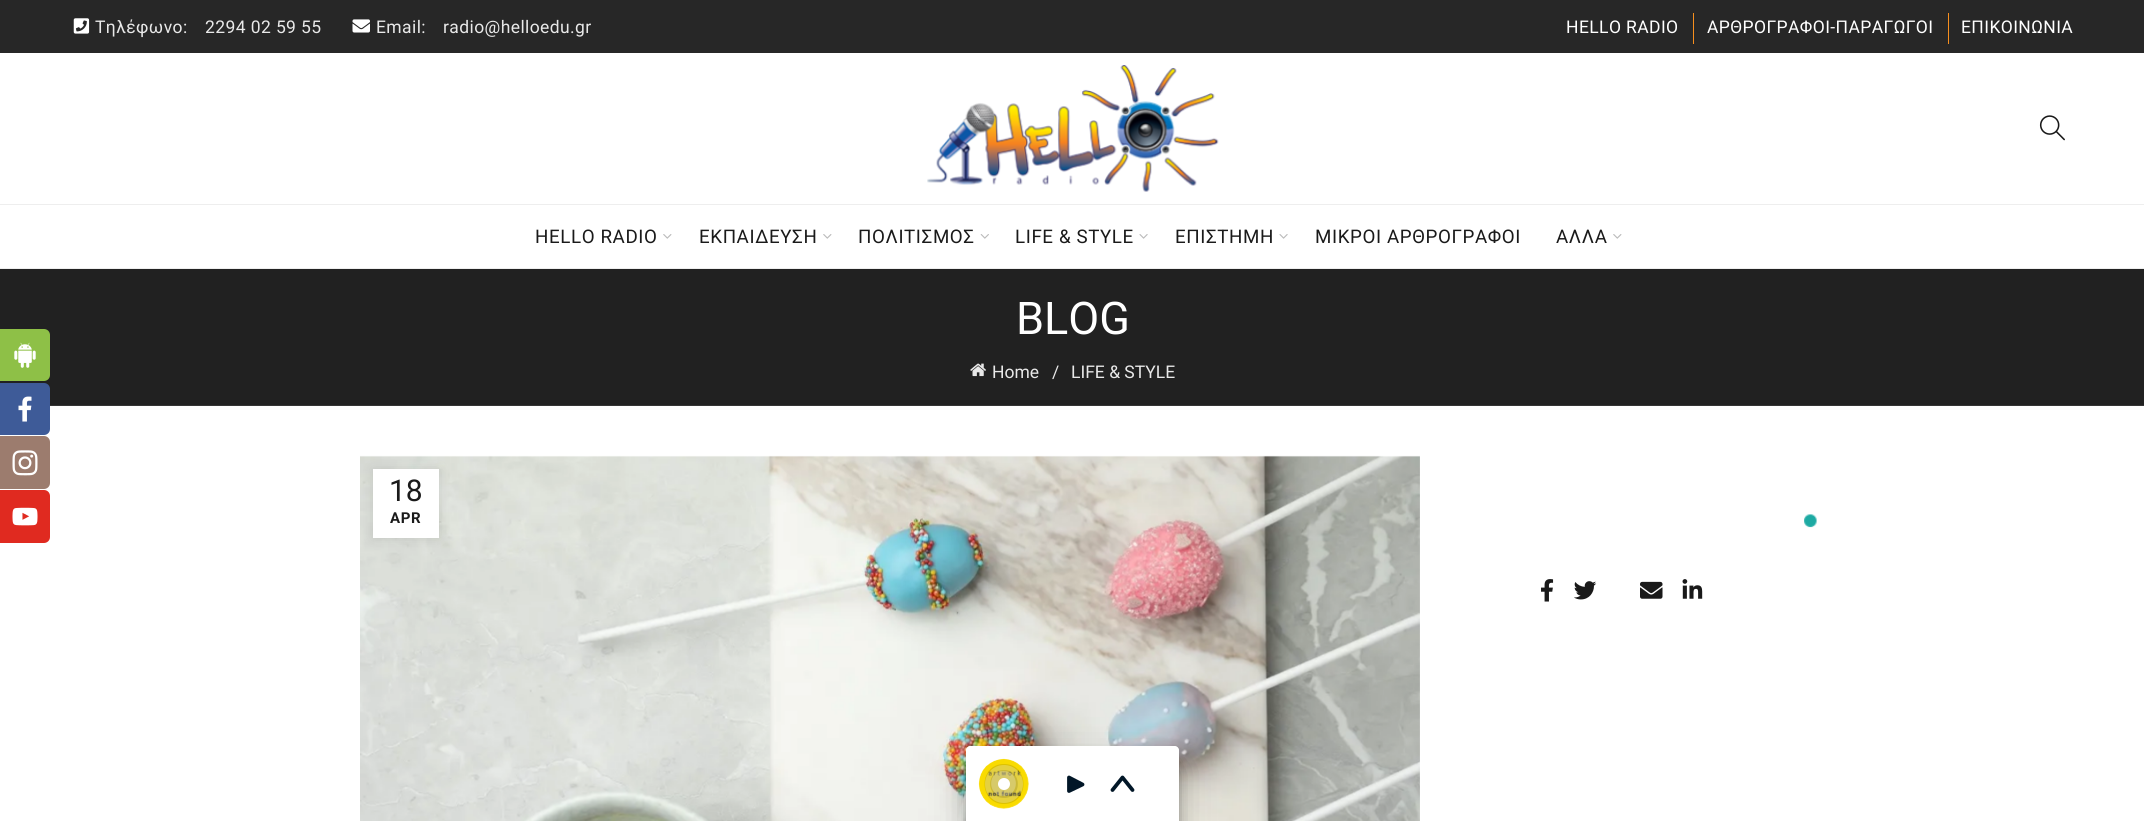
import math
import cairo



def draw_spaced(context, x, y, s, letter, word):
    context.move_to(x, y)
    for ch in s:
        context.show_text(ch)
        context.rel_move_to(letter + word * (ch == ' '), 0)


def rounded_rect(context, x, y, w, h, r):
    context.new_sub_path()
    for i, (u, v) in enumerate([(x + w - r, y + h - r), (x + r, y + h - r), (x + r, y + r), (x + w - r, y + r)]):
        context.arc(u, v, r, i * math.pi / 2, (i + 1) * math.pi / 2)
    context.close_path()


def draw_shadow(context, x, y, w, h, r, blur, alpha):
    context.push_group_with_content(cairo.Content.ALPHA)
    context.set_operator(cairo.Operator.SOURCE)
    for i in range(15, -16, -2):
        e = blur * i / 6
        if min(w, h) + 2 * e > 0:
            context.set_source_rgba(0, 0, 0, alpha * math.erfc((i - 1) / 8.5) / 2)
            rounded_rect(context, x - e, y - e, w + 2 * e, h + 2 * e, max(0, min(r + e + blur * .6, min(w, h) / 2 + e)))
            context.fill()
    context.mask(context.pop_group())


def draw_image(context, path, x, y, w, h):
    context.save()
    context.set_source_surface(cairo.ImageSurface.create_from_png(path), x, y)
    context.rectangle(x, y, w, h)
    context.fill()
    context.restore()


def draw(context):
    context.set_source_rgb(1, 1, 1)
    context.paint()
    context.set_source_rgb(33 / 255, 33 / 255, 33 / 255)
    context.rectangle(0, 269, 2144, 136)
    context.fill()
    context.set_source_rgb(142 / 255, 192 / 255, 71 / 255)
    rounded_rect(context, -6, 329, 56, 52, 6)
    context.fill()
    draw_image(context, "images/1.png", 14, 342, 22, 26)
    context.set_source_rgb(62 / 255, 91 / 255, 152 / 255)
    rounded_rect(context, -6, 383, 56, 52, 6)
    context.fill()
    draw_image(context, "images/2.png", 18, 396, 14, 26)
    context.set_source_rgb(156 / 255, 124 / 255, 110 / 255)
    rounded_rect(context, -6, 436, 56, 53, 6)
    context.fill()
    draw_image(context, "images/3.png", 12, 450, 26, 26)
    context.set_source_rgb(224 / 255, 42 / 255, 32 / 255)
    rounded_rect(context, -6, 490, 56, 53, 6)
    context.fill()
    draw_image(context, "images/4.png", 12, 507, 26, 19)
    context.set_source_rgb(39 / 255, 39 / 255, 39 / 255)
    context.rectangle(0, 0, 2144, 53)
    context.fill()
    draw_image(context, "images/5.png", 73, 18, 17, 16)
    draw_image(context, "images/6.png", 352, 19, 18, 14)
    context.set_source_rgb(247 / 255, 143 / 255, 30 / 255)
    context.rectangle(1693, 13, 1, 31)
    context.fill()
    context.rectangle(1948, 13, 1, 31)
    context.fill()
    draw_image(context, "images/7.png", 927, 65, 292, 127)
    draw_image(context, "images/8.png", 2039, 115, 26, 26)
    context.set_source_rgb(238 / 255, 238 / 255, 238 / 255)
    context.rectangle(0, 204, 2144, 1)
    context.fill()
    context.rectangle(0, 268, 2144, 1)
    context.fill()
    draw_image(context, "images/9.png", 663, 234, 9, 5)
    draw_image(context, "images/9.png", 823, 234, 9, 5)
    draw_image(context, "images/10.png", 980, 234, 9, 5)
    draw_image(context, "images/11.png", 1139, 234, 9, 5)
    draw_image(context, "images/11.png", 1279, 234, 9, 5)
    draw_image(context, "images/9.png", 1613, 234, 9, 5)
    context.set_source_rgb(53 / 255, 53 / 255, 53 / 255)
    context.rectangle(50, 405, 2094, 1)
    context.fill()
    draw_image(context, "images/12.png", 970, 363, 16, 14)
    draw_image(context, "images/13.png", 360, 455, 1060, 366)
    context.set_source_rgb(0, 0, 0)
    draw_shadow(context, 373, 469, 66, 69, 0, 5.5, 0.1)
    context.set_source_rgb(1, 1, 1)
    context.rectangle(373, 469, 66, 69)
    context.fill()
    draw_image(context, "images/14.png", 1804, 514, 13, 14)
    draw_image(context, "images/15.png", 1541, 579, 13, 23)
    draw_image(context, "images/16.png", 1574, 581, 23, 19)
    draw_image(context, "images/17.png", 1640, 581, 23, 18)
    draw_image(context, "images/18.png", 1682, 579, 21, 20)
    context.set_source_rgb(0, 0, 0)
    draw_shadow(context, 966, 759, 213, 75, 4, 6, 0.22)
    draw_shadow(context, 966, 764, 213, 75, 4, 17.5, 0.25)
    context.set_source_rgb(1, 1, 1)
    context.new_path()
    context.move_to(970, 746)
    context.line_to(1175, 746)
    context.curve_to(1177, 746, 1179, 748, 1179, 750)
    context.line_to(1179, 821)
    context.line_to(966, 821)
    context.line_to(966, 750)
    context.curve_to(966, 748, 968, 746, 970, 746)
    context.close_path()
    context.fill()
    draw_image(context, "images/19.png", 978, 758, 51, 51)
    context.set_source_rgba(0, 0, 0, 0.12)
    context.new_path()
    context.move_to(1004, 764)
    context.curve_to(978, 764, 978, 804, 1004, 804)
    context.curve_to(1030, 804, 1030, 764, 1004, 764)
    context.close_path()
    context.fill()
    context.set_source_rgba(1, 1, 1, 0.25)
    context.new_path()
    context.move_to(1004, 765)
    context.curve_to(993.5, 765, 985, 773.5, 985, 784)
    context.curve_to(985, 794.5, 993.5, 803, 1004, 803)
    context.curve_to(1014.5, 803, 1023, 794.5, 1023, 784)
    context.curve_to(1023, 773.5, 1014.5, 765, 1004, 765)
    context.close_path()
    context.fill()
    context.set_source_rgba(0, 0, 0, 0.12)
    context.new_path()
    context.move_to(1004, 770)
    context.curve_to(985.5, 770, 985.5, 798, 1004, 798)
    context.curve_to(1022.5, 798, 1022.5, 770, 1004, 770)
    context.close_path()
    context.fill()
    context.set_source_rgba(1, 1, 1, 0.25)
    context.new_path()
    context.move_to(1003.5, 771)
    context.curve_to(987, 771, 987, 796, 1003.5, 796)
    context.curve_to(1020, 796, 1020, 771, 1003.5, 771)
    context.close_path()
    context.fill()
    context.set_source_rgb(1, 1, 1)
    context.arc(1004, 784, 6, 0, 2 * math.pi)
    context.fill()
    context.set_source_rgb(1 / 255, 22 / 255, 39 / 255)
    context.new_path()
    context.move_to(1069, 777.5)
    context.line_to(1082.5, 784.5)
    context.line_to(1069, 791)
    context.close_path()
    context.move_to(1082.5, 784.5)
    context.line_to(1082.5, 784.5)
    context.close_path()
    context.fill_preserve()
    context.set_line_width(3.8)
    context.set_line_cap(cairo.LineCap.ROUND)
    context.set_line_join(cairo.LineJoin.ROUND)
    context.stroke()
    context.new_path()
    context.move_to(1112.5, 790)
    context.line_to(1122.5, 777.5)
    context.line_to(1132.5, 790)
    context.stroke()
    context.select_font_face("Roboto")
    context.set_font_size(17.5)
    context.set_source_rgb(233 / 255, 233 / 255, 233 / 255)
    draw_spaced(context, 95, 33, "Τηλέφωνο:", 0.4, 0)
    draw_spaced(context, 205, 33, "2294 02 59 55", 0.4, 0)
    draw_spaced(context, 376, 33, "Email:", 0.4, 0)
    draw_spaced(context, 443, 33, "radio@helloedu.gr", 0.4, 0)
    context.set_source_rgb(1, 1, 1)
    draw_spaced(context, 1566, 33, "HELLO RADIO", 0.4, 0)
    draw_spaced(context, 1707, 33, "ΑΡΘΡΟΓΡΑΦΟΙ-ΠΑΡΑΓΩΓΟΙ", 0.4, 0)
    draw_spaced(context, 1961, 33, "ΕΠΙΚΟΙΝΩΝΙΑ", 0.4, 0)
    context.set_font_size(18.75)
    context.set_source_rgb(26 / 255, 26 / 255, 26 / 255)
    draw_spaced(context, 535, 243, "HELLO RADIO", 0.6, 0)
    draw_spaced(context, 699, 243, "ΕΚΠΑΙΔΕΥΣΗ", 0.6, 0)
    draw_spaced(context, 858, 243, "ΠΟΛΙΤΙΣΜΟΣ", 0.6, 0)
    draw_spaced(context, 1015, 243, "LIFE & STYLE", 0.6, 0)
    draw_spaced(context, 1175, 243, "ΕΠΙΣΤΗΜΗ", 0.6, 0)
    draw_spaced(context, 1315, 243, "ΜΙΚΡΟΙ ΑΡΘΡΟΓΡΑΦΟΙ", 0.6, 0)
    draw_spaced(context, 1556, 243, "ΑΛΛΑ", 0.6, 0)
    context.set_font_size(45)
    context.set_source_rgb(1, 1, 1)
    context.move_to(1016, 334)
    context.show_text("BLOG")
    context.set_font_size(17.5)
    context.set_source_rgb(233 / 255, 233 / 255, 233 / 255)
    context.move_to(992, 378)
    context.show_text("Home")
    context.move_to(1052, 378)
    context.show_text("/")
    context.move_to(1071, 378)
    context.show_text("LIFE & STYLE")
    context.set_font_size(30)
    context.set_source_rgb(26 / 255, 26 / 255, 26 / 255)
    context.move_to(389, 501)
    context.show_text("18")
    context.select_font_face("Roboto", cairo.FontSlant.NORMAL, cairo.FontWeight.BOLD)
    context.set_font_size(15)
    draw_spaced(context, 390, 523, "APR", 0.6, 0)


surface = cairo.ImageSurface(cairo.Format.RGB24, 2144, 821)
context = cairo.Context(surface)
options = cairo.FontOptions()
options.set_hint_metrics(cairo.HintMetrics.OFF)
options.set_hint_style(cairo.HintStyle.NONE)
context.set_font_options(options)
context.set_miter_limit(4)
draw(context)
surface.write_to_png("out.png")
